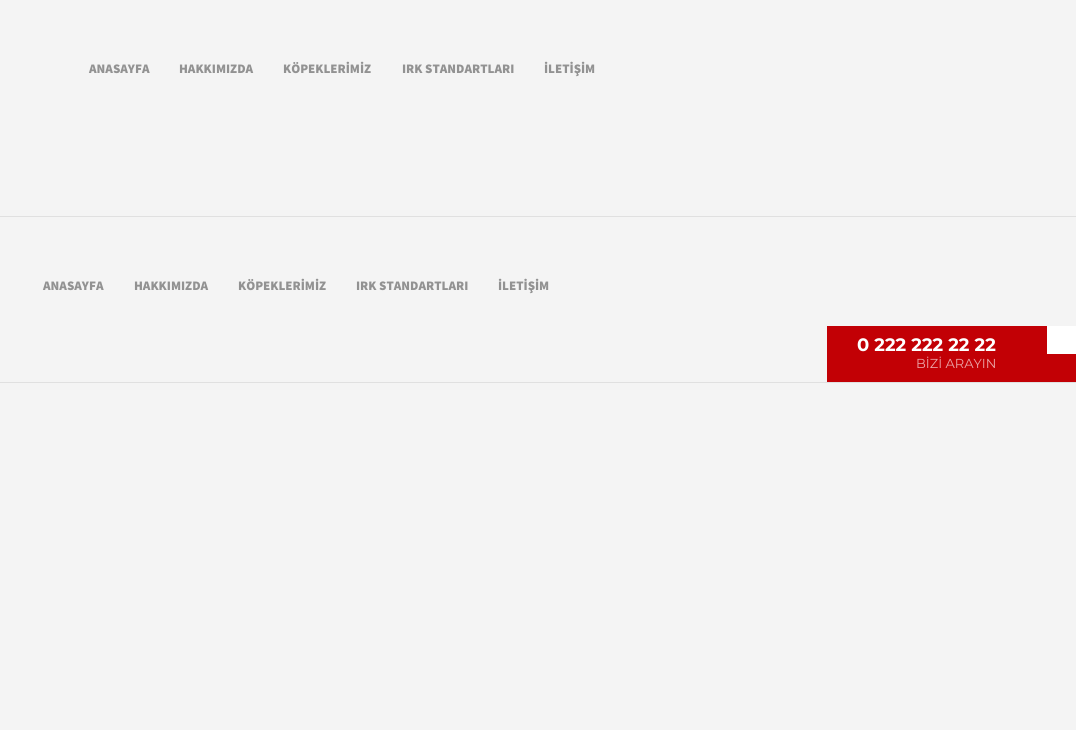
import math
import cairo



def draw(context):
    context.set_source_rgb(244 / 255, 244 / 255, 244 / 255)
    context.paint()
    context.set_source_rgb(224 / 255, 224 / 255, 224 / 255)
    context.rectangle(0, 216, 1076, 1)
    context.fill()
    context.rectangle(0, 382, 1076, 1)
    context.fill()
    context.set_source_rgb(194 / 255, 0, 5 / 255)
    context.rectangle(827, 326, 249, 56)
    context.fill()
    context.set_source_rgb(1, 1, 1)
    context.rectangle(1047, 326, 29, 28)
    context.fill()
    context.select_font_face("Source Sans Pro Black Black")
    context.set_font_size(13)
    context.set_source_rgb(146 / 255, 146 / 255, 146 / 255)
    context.move_to(89, 73)
    context.show_text("ANASAYFA")
    context.move_to(179, 73)
    context.show_text("HAKKIMIZDA")
    context.move_to(283, 73)
    context.show_text("KÖPEKLERİMİZ")
    context.move_to(402, 73)
    context.show_text("IRK STANDARTLARI")
    context.move_to(544, 73)
    context.show_text("İLETİŞİM")
    context.move_to(43, 290)
    context.show_text("ANASAYFA")
    context.move_to(134, 290)
    context.show_text("HAKKIMIZDA")
    context.move_to(238, 290)
    context.show_text("KÖPEKLERİMİZ")
    context.move_to(356, 290)
    context.show_text("IRK STANDARTLARI")
    context.move_to(498, 290)
    context.show_text("İLETİŞİM")
    context.select_font_face("Montserrat", cairo.FontSlant.NORMAL, cairo.FontWeight.BOLD)
    context.set_font_size(18)
    context.set_source_rgb(1, 1, 1)
    context.move_to(857, 351)
    context.show_text("0 222 222 22 22")
    context.select_font_face("Montserrat")
    context.set_font_size(13)
    context.set_source_rgb(234 / 255, 166 / 255, 168 / 255)
    context.move_to(916, 368)
    context.show_text("BİZİ ARAYIN")


surface = cairo.ImageSurface(cairo.Format.RGB24, 1076, 730)
context = cairo.Context(surface)
options = cairo.FontOptions()
options.set_hint_metrics(cairo.HintMetrics.OFF)
options.set_hint_style(cairo.HintStyle.NONE)
context.set_font_options(options)
context.set_miter_limit(4)
draw(context)
surface.write_to_png("out.png")
